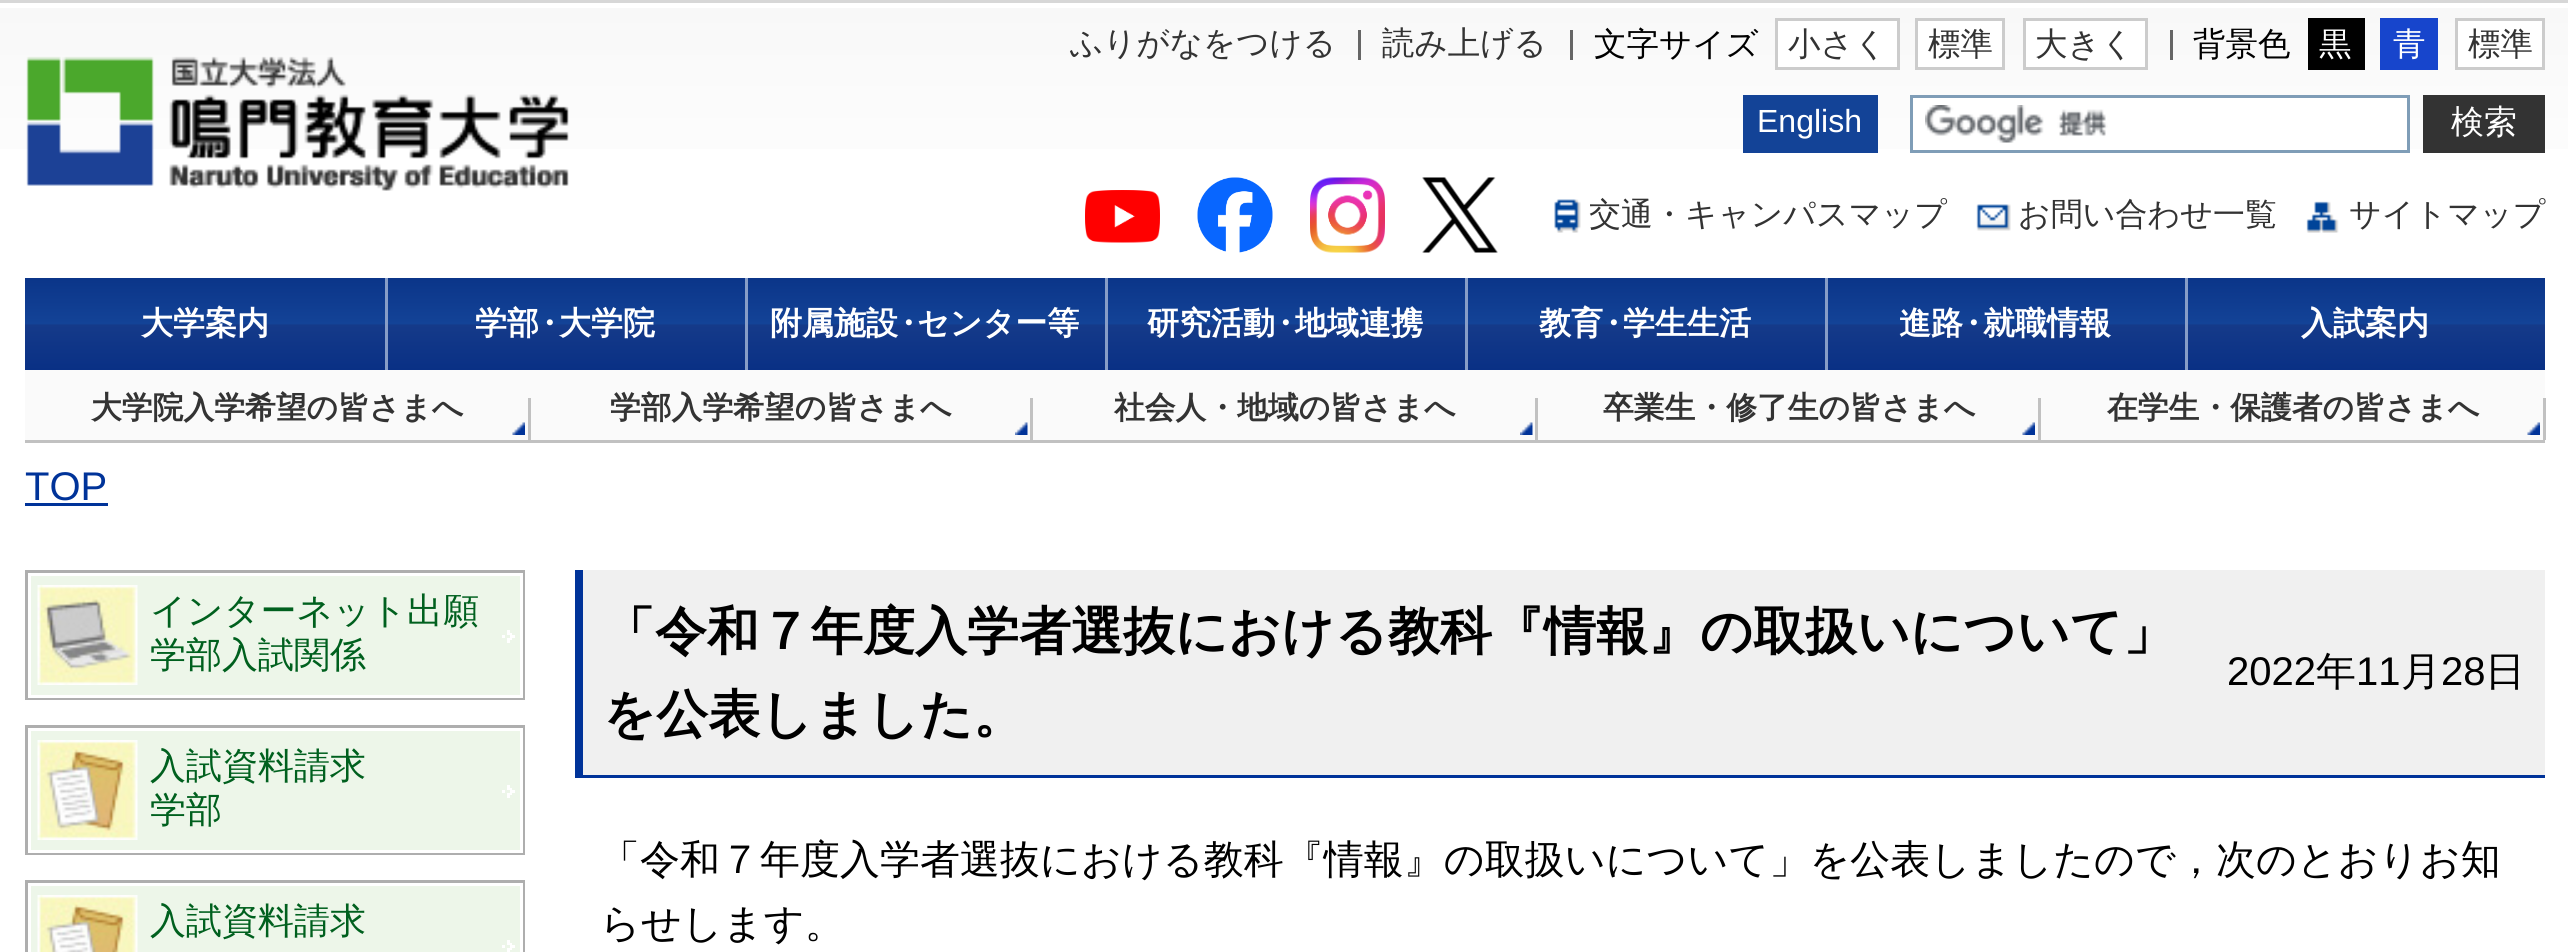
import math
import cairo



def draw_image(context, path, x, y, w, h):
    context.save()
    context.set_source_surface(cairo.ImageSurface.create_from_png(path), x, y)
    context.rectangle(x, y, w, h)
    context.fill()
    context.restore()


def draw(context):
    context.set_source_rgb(1, 1, 1)
    context.paint()
    context.set_source_rgb(215 / 255, 215 / 255, 215 / 255)
    context.rectangle(0, 0, 2568, 3)
    context.fill()
    gradient = cairo.LinearGradient(1285, 7.5, 1285, 228)
    gradient.add_color_stop_rgba(0, 248 / 255, 248 / 255, 248 / 255, 1)
    gradient.add_color_stop_rgba(1, 1, 1, 1, 1)
    context.set_source(gradient)
    context.rectangle(0, 8, 2568, 141)
    context.fill()
    draw_image(context, "images/1.png", 26, 56, 543, 135)
    context.set_source_rgb(102 / 255, 102 / 255, 102 / 255)
    context.rectangle(1358, 30, 3, 30)
    context.fill()
    context.rectangle(1570, 30, 3, 30)
    context.fill()
    context.set_source_rgb(1, 1, 1)
    context.rectangle(1776.5, 19.5, 122, 49)
    context.fill_preserve()
    context.set_source_rgb(204 / 255, 204 / 255, 204 / 255)
    context.set_line_width(3)
    context.stroke()
    context.set_source_rgb(1, 1, 1)
    context.rectangle(1916.5, 19.5, 87, 49)
    context.fill_preserve()
    context.set_source_rgb(204 / 255, 204 / 255, 204 / 255)
    context.stroke()
    context.set_source_rgb(1, 1, 1)
    context.rectangle(2024.5, 19.5, 122, 49)
    context.fill_preserve()
    context.set_source_rgb(204 / 255, 204 / 255, 204 / 255)
    context.stroke()
    context.set_source_rgb(102 / 255, 102 / 255, 102 / 255)
    context.rectangle(2170, 30, 3, 30)
    context.fill()
    context.set_source_rgb(0, 0, 0)
    context.rectangle(2308, 18, 57, 52)
    context.fill()
    context.set_source_rgb(23 / 255, 69 / 255, 204 / 255)
    context.rectangle(2380, 18, 58, 52)
    context.fill()
    context.set_source_rgb(1, 1, 1)
    context.rectangle(2456.5, 19.5, 87, 49)
    context.fill_preserve()
    context.set_source_rgb(204 / 255, 204 / 255, 204 / 255)
    context.stroke()
    context.set_source_rgb(19 / 255, 67 / 255, 151 / 255)
    context.rectangle(1743, 95, 135, 58)
    context.fill()
    context.set_source_rgb(1, 1, 1)
    context.rectangle(1913, 98, 494, 51)
    context.fill()
    draw_image(context, "images/2.png", 1925, 105, 183, 38)
    context.rectangle(1911.5, 96.5, 497, 55)
    context.set_source_rgb(127 / 255, 157 / 255, 183 / 255)
    context.stroke()
    context.set_source_rgb(51 / 255, 51 / 255, 51 / 255)
    context.rectangle(2423, 95, 122, 58)
    context.fill()
    draw_image(context, "images/3.png", 1085, 190, 75, 53)
    draw_image(context, "images/4.png", 1197, 177, 76, 76)
    draw_image(context, "images/5.png", 1310, 177, 75, 76)
    draw_image(context, "images/6.png", 1422, 177, 76, 76)
    draw_image(context, "images/7.png", 1554, 199, 27, 34)
    draw_image(context, "images/8.png", 1976, 204, 35, 27)
    draw_image(context, "images/9.png", 2306, 201, 33, 32)
    gradient = cairo.LinearGradient(205, 278, 205, 370)
    gradient.add_color_stop_rgba(0, 11 / 255, 53 / 255, 137 / 255, 1)
    gradient.add_color_stop_rgba(0.5, 19 / 255, 67 / 255, 151 / 255, 1)
    gradient.add_color_stop_rgba(0.51, 21 / 255, 58 / 255, 137 / 255, 1)
    gradient.add_color_stop_rgba(1, 9 / 255, 48 / 255, 133 / 255, 1)
    context.set_source(gradient)
    context.rectangle(25, 278, 360, 92)
    context.fill()
    context.set_source_rgb(135 / 255, 157 / 255, 199 / 255)
    context.rectangle(385, 278, 3, 92)
    context.fill()
    gradient = cairo.LinearGradient(565, 278, 565, 370)
    gradient.add_color_stop_rgba(0, 11 / 255, 53 / 255, 137 / 255, 1)
    gradient.add_color_stop_rgba(0.5, 19 / 255, 67 / 255, 151 / 255, 1)
    gradient.add_color_stop_rgba(0.51, 21 / 255, 58 / 255, 137 / 255, 1)
    gradient.add_color_stop_rgba(1, 9 / 255, 48 / 255, 133 / 255, 1)
    context.set_source(gradient)
    context.rectangle(388, 278, 357, 92)
    context.fill()
    context.set_source_rgb(135 / 255, 157 / 255, 199 / 255)
    context.rectangle(745, 278, 3, 92)
    context.fill()
    gradient = cairo.LinearGradient(925, 278, 925, 370)
    gradient.add_color_stop_rgba(0, 11 / 255, 53 / 255, 137 / 255, 1)
    gradient.add_color_stop_rgba(0.5, 19 / 255, 67 / 255, 151 / 255, 1)
    gradient.add_color_stop_rgba(0.51, 21 / 255, 58 / 255, 137 / 255, 1)
    gradient.add_color_stop_rgba(1, 9 / 255, 48 / 255, 133 / 255, 1)
    context.set_source(gradient)
    context.rectangle(748, 278, 357, 92)
    context.fill()
    context.set_source_rgb(135 / 255, 157 / 255, 199 / 255)
    context.rectangle(1105, 278, 3, 92)
    context.fill()
    gradient = cairo.LinearGradient(1285, 278, 1285, 370)
    gradient.add_color_stop_rgba(0, 11 / 255, 53 / 255, 137 / 255, 1)
    gradient.add_color_stop_rgba(0.5, 19 / 255, 67 / 255, 151 / 255, 1)
    gradient.add_color_stop_rgba(0.51, 21 / 255, 58 / 255, 137 / 255, 1)
    gradient.add_color_stop_rgba(1, 9 / 255, 48 / 255, 133 / 255, 1)
    context.set_source(gradient)
    context.rectangle(1108, 278, 357, 92)
    context.fill()
    context.set_source_rgb(135 / 255, 157 / 255, 199 / 255)
    context.rectangle(1465, 278, 3, 92)
    context.fill()
    gradient = cairo.LinearGradient(1645, 278, 1645, 370)
    gradient.add_color_stop_rgba(0, 11 / 255, 53 / 255, 137 / 255, 1)
    gradient.add_color_stop_rgba(0.5, 19 / 255, 67 / 255, 151 / 255, 1)
    gradient.add_color_stop_rgba(0.51, 21 / 255, 58 / 255, 137 / 255, 1)
    gradient.add_color_stop_rgba(1, 9 / 255, 48 / 255, 133 / 255, 1)
    context.set_source(gradient)
    context.rectangle(1468, 278, 357, 92)
    context.fill()
    context.set_source_rgb(135 / 255, 157 / 255, 199 / 255)
    context.rectangle(1825, 278, 3, 92)
    context.fill()
    gradient = cairo.LinearGradient(2005, 278, 2005, 370)
    gradient.add_color_stop_rgba(0, 11 / 255, 53 / 255, 137 / 255, 1)
    gradient.add_color_stop_rgba(0.5, 19 / 255, 67 / 255, 151 / 255, 1)
    gradient.add_color_stop_rgba(0.51, 21 / 255, 58 / 255, 137 / 255, 1)
    gradient.add_color_stop_rgba(1, 9 / 255, 48 / 255, 133 / 255, 1)
    context.set_source(gradient)
    context.rectangle(1828, 278, 357, 92)
    context.fill()
    context.set_source_rgb(135 / 255, 157 / 255, 199 / 255)
    context.rectangle(2185, 278, 3, 92)
    context.fill()
    gradient = cairo.LinearGradient(2365, 278, 2365, 370)
    gradient.add_color_stop_rgba(0, 11 / 255, 53 / 255, 137 / 255, 1)
    gradient.add_color_stop_rgba(0.5, 19 / 255, 67 / 255, 151 / 255, 1)
    gradient.add_color_stop_rgba(0.51, 21 / 255, 58 / 255, 137 / 255, 1)
    gradient.add_color_stop_rgba(1, 9 / 255, 48 / 255, 133 / 255, 1)
    context.set_source(gradient)
    context.rectangle(2188, 278, 357, 92)
    context.fill()
    context.set_source_rgb(193 / 255, 193 / 255, 193 / 255)
    context.rectangle(25, 440, 2520, 3)
    context.fill()
    context.set_source_rgb(250 / 255, 250 / 255, 250 / 255)
    context.rectangle(25, 370, 2520, 70)
    context.fill()
    draw_image(context, "images/10.png", 512, 422, 13, 13)
    context.set_source_rgb(193 / 255, 193 / 255, 193 / 255)
    context.rectangle(528, 398, 3, 42)
    context.fill()
    draw_image(context, "images/11.png", 1015, 422, 13, 13)
    context.rectangle(1030, 398, 3, 42)
    context.fill()
    draw_image(context, "images/11.png", 1520, 422, 13, 13)
    context.rectangle(1535, 398, 3, 42)
    context.fill()
    draw_image(context, "images/10.png", 2022, 422, 13, 13)
    context.rectangle(2038, 398, 3, 42)
    context.fill()
    draw_image(context, "images/10.png", 2527, 422, 13, 13)
    context.rectangle(2543, 398, 3, 42)
    context.fill()
    context.set_source_rgb(0, 51 / 255, 153 / 255)
    context.rectangle(25, 503, 83, 3)
    context.fill()
    context.rectangle(26.5, 571.5, 497, 127)
    context.set_source_rgb(174 / 255, 174 / 255, 174 / 255)
    context.stroke()
    context.set_source_rgb(237 / 255, 246 / 255, 233 / 255)
    context.rectangle(31, 576, 489, 119)
    context.fill()
    draw_image(context, "images/12.png", 502, 630, 13, 13)
    context.rectangle(29.5, 574.5, 492, 122)
    context.set_source_rgb(1, 1, 1)
    context.stroke()
    draw_image(context, "images/13.png", 37, 585, 101, 100)
    context.rectangle(26.5, 726.5, 497, 127)
    context.set_source_rgb(174 / 255, 174 / 255, 174 / 255)
    context.stroke()
    context.set_source_rgb(237 / 255, 246 / 255, 233 / 255)
    context.rectangle(31, 731, 489, 119)
    context.fill()
    draw_image(context, "images/12.png", 502, 785, 13, 13)
    context.rectangle(29.5, 729.5, 492, 122)
    context.set_source_rgb(1, 1, 1)
    context.stroke()
    draw_image(context, "images/14.png", 37, 740, 101, 100)
    context.rectangle(26.5, 881.5, 497, 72)
    context.set_source_rgb(174 / 255, 174 / 255, 174 / 255)
    context.stroke()
    context.set_source_rgb(237 / 255, 246 / 255, 233 / 255)
    context.rectangle(31, 886, 489, 66)
    context.fill()
    draw_image(context, "images/15.png", 502, 940, 13, 12)
    context.rectangle(29.5, 884.5, 492, 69)
    context.set_source_rgb(1, 1, 1)
    context.stroke()
    draw_image(context, "images/16.png", 37, 895, 101, 57)
    context.set_source_rgb(240 / 255, 240 / 255, 240 / 255)
    context.rectangle(583, 570, 1962, 205)
    context.fill()
    context.set_source_rgb(0, 51 / 255, 153 / 255)
    context.rectangle(575, 775, 1970, 3)
    context.fill()
    context.rectangle(575, 570, 8, 208)
    context.fill()
    context.select_font_face("WenQuanYi Zen Hei Medium")
    context.set_font_size(32.5)
    context.set_source_rgb(51 / 255, 51 / 255, 51 / 255)
    context.move_to(1070, 54)
    context.show_text("ふりがなをつける")
    context.move_to(1382, 54)
    context.show_text("読み上げる")
    context.set_source_rgb(0, 0, 0)
    context.move_to(1594, 55)
    context.show_text("文字サイズ")
    context.set_source_rgb(51 / 255, 51 / 255, 51 / 255)
    context.move_to(1788, 55)
    context.show_text("小さく")
    context.move_to(1928, 55)
    context.show_text("標準")
    context.move_to(2035, 55)
    context.show_text("大きく")
    context.set_source_rgb(0, 0, 0)
    context.move_to(2193, 55)
    context.show_text("背景色")
    context.set_source_rgb(1, 1, 1)
    context.move_to(2319, 55)
    context.show_text("黒")
    context.move_to(2393, 55)
    context.show_text("青")
    context.set_source_rgb(51 / 255, 51 / 255, 51 / 255)
    context.move_to(2468, 55)
    context.show_text("標準")
    context.select_font_face("Liberation Sans")
    context.set_font_size(32)
    context.set_source_rgb(1, 1, 1)
    context.move_to(1757, 132)
    context.show_text("English")
    context.select_font_face("WenQuanYi Zen Hei Medium")
    context.set_font_size(33)
    context.move_to(2451, 133)
    context.show_text("検索")
    context.set_font_size(32)
    context.set_source_rgb(51 / 255, 51 / 255, 51 / 255)
    context.move_to(1589, 225)
    context.show_text("交通・キャンパスマップ")
    context.move_to(2018, 225)
    context.show_text("お問い合わせ一覧")
    context.move_to(2349, 225)
    context.show_text("サイトマップ")
    context.select_font_face("WenQuanYi Zen Hei", cairo.FontSlant.NORMAL, cairo.FontWeight.BOLD)
    context.set_source_rgb(1, 1, 1)
    context.move_to(141, 334)
    context.show_text("大学案内")
    context.move_to(475, 334)
    context.show_text("学部")
    context.move_to(533, 334)
    context.show_text("・")
    context.move_to(559, 334)
    context.show_text("大学院")
    context.move_to(770, 334)
    context.show_text("附属施設")
    context.move_to(892, 334)
    context.show_text("・")
    context.move_to(917, 334)
    context.show_text("センター等")
    context.move_to(1147, 334)
    context.show_text("研究活動")
    context.move_to(1269, 334)
    context.show_text("・")
    context.move_to(1295, 334)
    context.show_text("地域連携")
    context.move_to(1539, 334)
    context.show_text("教育")
    context.move_to(1597, 334)
    context.show_text("・")
    context.move_to(1623, 334)
    context.show_text("学生生活")
    context.move_to(1899, 334)
    context.show_text("進路")
    context.move_to(1957, 334)
    context.show_text("・")
    context.move_to(1983, 334)
    context.show_text("就職情報")
    context.move_to(2301, 334)
    context.show_text("入試案内")
    context.set_font_size(30.8)
    context.set_source_rgb(51 / 255, 51 / 255, 51 / 255)
    context.move_to(91, 418)
    context.show_text("大学院入学希望の皆さまへ")
    context.move_to(610, 418)
    context.show_text("学部入学希望の皆さまへ")
    context.move_to(1114, 418)
    context.show_text("社会人・地域の皆さまへ")
    context.move_to(1603, 418)
    context.show_text("卒業生・修了生の皆さまへ")
    context.move_to(2107, 418)
    context.show_text("在学生・保護者の皆さまへ")
    context.select_font_face("Liberation Sans")
    context.set_font_size(40)
    context.set_source_rgb(0, 51 / 255, 153 / 255)
    context.move_to(25, 500)
    context.show_text("TOP")
    context.select_font_face("WenQuanYi Zen Hei Medium")
    context.set_font_size(36)
    context.set_source_rgb(0, 96 / 255, 30 / 255)
    context.move_to(150, 623)
    context.show_text("インターネット出願")
    context.move_to(150, 667)
    context.show_text("学部入試関係")
    context.move_to(150, 778)
    context.show_text("入試資料請求")
    context.move_to(150, 822)
    context.show_text("学部")
    context.move_to(150, 933)
    context.show_text("入試資料請求")
    context.select_font_face("WenQuanYi Zen Hei", cairo.FontSlant.NORMAL, cairo.FontWeight.BOLD)
    context.set_font_size(52)
    context.set_source_rgb(0, 0, 0)
    context.move_to(603, 649)
    context.show_text("「令和７年度入学者選抜における教科『情報』の取扱いについて」")
    context.move_to(603, 732)
    context.show_text("を公表しました。")
    context.select_font_face("Liberation Sans")
    context.set_font_size(40)
    context.move_to(2227, 685)
    context.show_text("2022")
    context.select_font_face("WenQuanYi Zen Hei Medium")
    context.move_to(2316, 685)
    context.show_text("年")
    context.select_font_face("Liberation Sans")
    context.move_to(2356, 685)
    context.show_text("11")
    context.select_font_face("WenQuanYi Zen Hei Medium")
    context.move_to(2401, 685)
    context.show_text("月")
    context.select_font_face("Liberation Sans")
    context.move_to(2441, 685)
    context.show_text("28")
    context.select_font_face("WenQuanYi Zen Hei Medium")
    context.move_to(2485, 685)
    context.show_text("日")
    context.move_to(600, 873)
    context.show_text("「令和７年度入学者選抜における教科『情報』の取扱いについて」を公表しましたので，次のとおりお知")
    context.move_to(600, 937)
    context.show_text("らせします。")


surface = cairo.ImageSurface(cairo.Format.RGB24, 2568, 952)
context = cairo.Context(surface)
options = cairo.FontOptions()
options.set_hint_metrics(cairo.HintMetrics.OFF)
options.set_hint_style(cairo.HintStyle.NONE)
context.set_font_options(options)
context.set_miter_limit(4)
draw(context)
surface.write_to_png("out.png")
